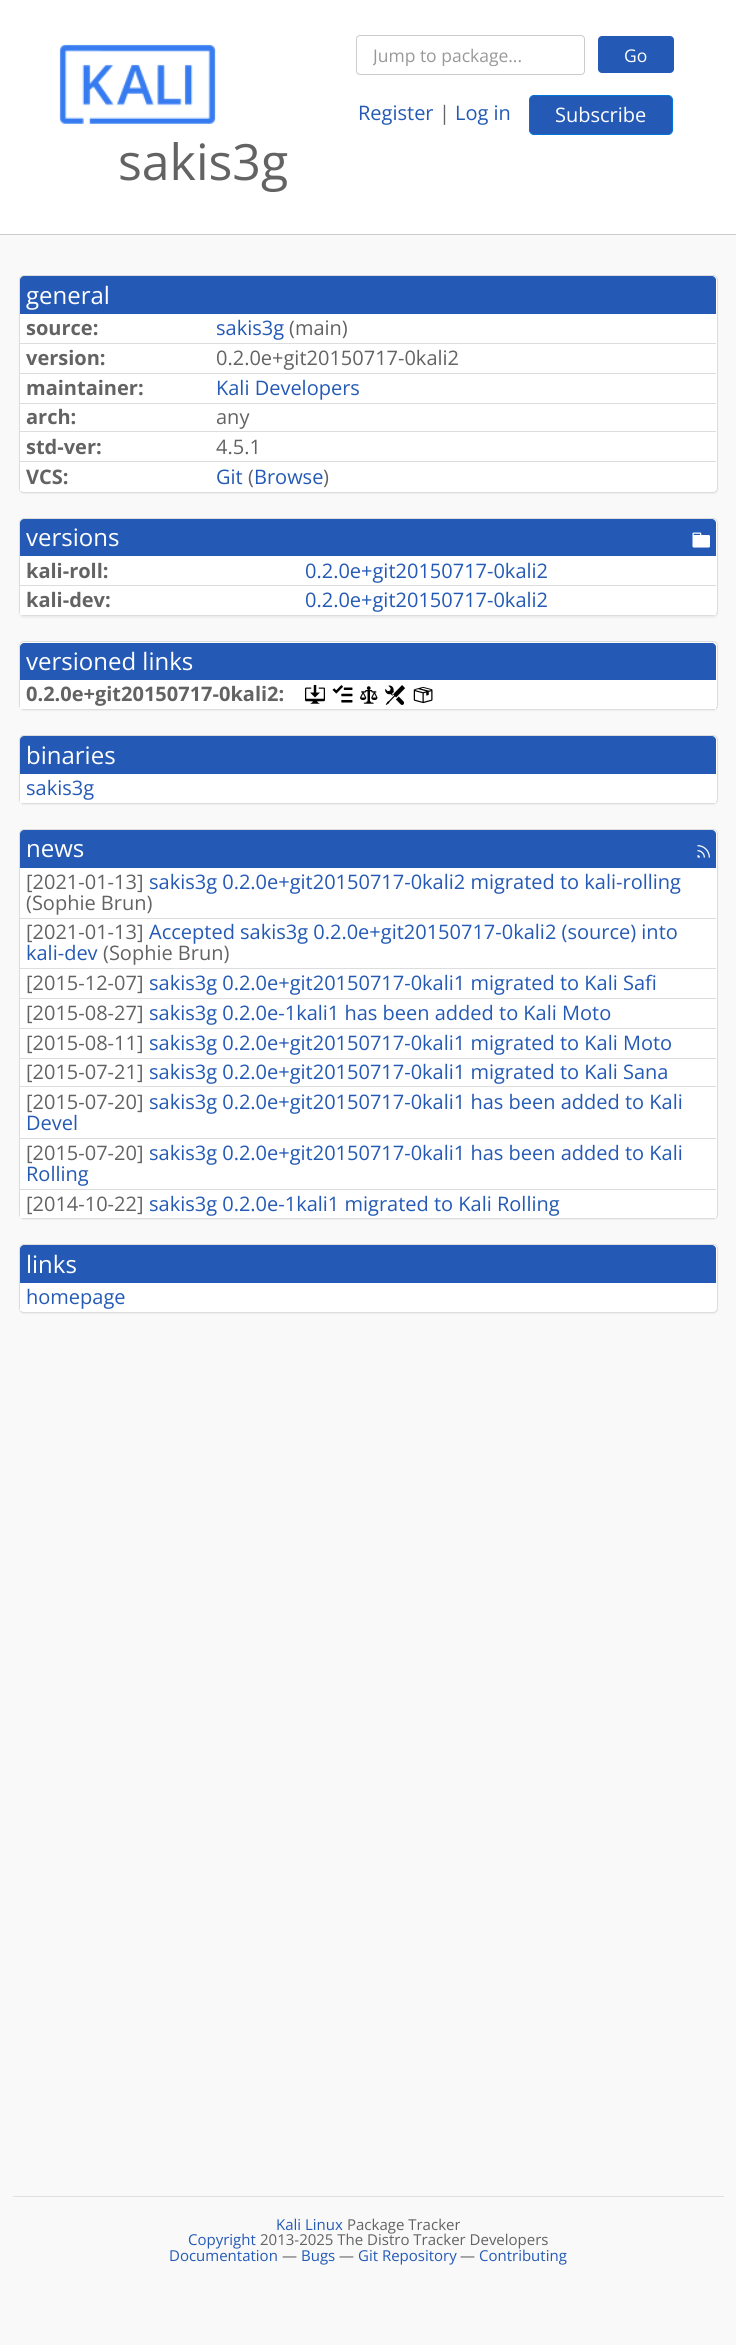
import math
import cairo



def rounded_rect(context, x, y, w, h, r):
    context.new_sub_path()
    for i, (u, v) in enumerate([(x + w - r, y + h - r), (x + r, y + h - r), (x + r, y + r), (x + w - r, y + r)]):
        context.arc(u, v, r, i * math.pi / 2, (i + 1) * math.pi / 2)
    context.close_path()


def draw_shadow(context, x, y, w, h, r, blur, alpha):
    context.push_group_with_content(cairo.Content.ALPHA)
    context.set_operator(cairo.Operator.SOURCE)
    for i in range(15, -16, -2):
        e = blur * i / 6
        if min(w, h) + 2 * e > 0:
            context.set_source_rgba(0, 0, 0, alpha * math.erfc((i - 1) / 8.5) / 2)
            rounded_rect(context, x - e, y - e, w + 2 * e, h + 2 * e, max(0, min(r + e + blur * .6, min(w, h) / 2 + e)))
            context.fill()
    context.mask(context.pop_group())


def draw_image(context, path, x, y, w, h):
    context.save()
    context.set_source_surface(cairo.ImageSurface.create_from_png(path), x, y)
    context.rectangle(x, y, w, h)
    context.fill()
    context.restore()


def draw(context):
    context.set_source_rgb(249 / 255, 249 / 255, 249 / 255)
    context.paint()
    context.set_source_rgb(1, 1, 1)
    context.rectangle(0, 0, 736, 234)
    context.fill()
    context.set_source_rgb(204 / 255, 204 / 255, 204 / 255)
    context.rectangle(0, 234, 736, 1)
    context.fill()
    draw_image(context, "images/1.png", 59, 44, 157, 80)
    rounded_rect(context, 356.5, 35.5, 228, 39, 3.5)
    context.set_line_width(1)
    context.stroke()
    context.set_source_rgb(36 / 255, 90 / 255, 181 / 255)
    rounded_rect(context, 598, 36, 76, 37, 4)
    context.fill()
    rounded_rect(context, 529.5, 95.5, 143, 39, 4.5)
    context.fill_preserve()
    context.set_source_rgb(2 / 255, 117 / 255, 216 / 255)
    context.stroke()
    context.set_source_rgb(0, 0, 0)
    draw_shadow(context, 19, 276, 699, 218, 5, 0.5, 0.05)
    context.set_source_rgb(1, 1, 1)
    rounded_rect(context, 19.5, 275.5, 698, 217, 4.5)
    context.fill_preserve()
    context.set_source_rgb(221 / 255, 221 / 255, 221 / 255)
    context.stroke()
    context.set_source_rgb(36 / 255, 90 / 255, 181 / 255)
    context.new_path()
    context.move_to(24, 276)
    context.line_to(712, 276)
    context.curve_to(714, 276, 716, 278, 716, 280)
    context.line_to(716, 315)
    context.line_to(20, 315)
    context.line_to(20, 280)
    context.curve_to(20, 278, 22, 276, 24, 276)
    context.close_path()
    context.fill()
    context.set_source_rgb(1, 1, 1)
    context.rectangle(20, 314, 696, 177)
    context.fill()
    context.set_source_rgb(221 / 255, 221 / 255, 221 / 255)
    context.rectangle(20, 343, 696, 1)
    context.fill()
    context.rectangle(20, 373, 696, 1)
    context.fill()
    context.rectangle(20, 403, 696, 1)
    context.fill()
    context.rectangle(20, 431, 696, 1)
    context.fill()
    context.rectangle(20, 461, 696, 1)
    context.fill()
    context.set_source_rgb(0, 0, 0)
    draw_shadow(context, 19, 519, 699, 99, 5, 0.5, 0.05)
    context.set_source_rgb(1, 1, 1)
    rounded_rect(context, 19.5, 518.5, 698, 97, 4.5)
    context.fill_preserve()
    context.set_source_rgb(221 / 255, 221 / 255, 221 / 255)
    context.stroke()
    context.set_source_rgb(36 / 255, 90 / 255, 181 / 255)
    context.new_path()
    context.move_to(24, 519)
    context.line_to(712, 519)
    context.curve_to(714, 519, 716, 521, 716, 523)
    context.line_to(716, 558)
    context.line_to(20, 558)
    context.line_to(20, 523)
    context.curve_to(20, 521, 22, 519, 24, 519)
    context.close_path()
    context.fill()
    draw_image(context, "images/2.png", 692, 532, 18, 16)
    context.set_source_rgb(1, 1, 1)
    context.rectangle(20, 556, 696, 59)
    context.fill()
    context.set_source_rgb(221 / 255, 221 / 255, 221 / 255)
    context.rectangle(20, 585, 696, 1)
    context.fill()
    context.set_source_rgb(0, 0, 0)
    draw_shadow(context, 19, 643, 699, 68, 5, 0.5, 0.05)
    context.set_source_rgb(1, 1, 1)
    rounded_rect(context, 19.5, 641.5, 698, 68, 4.5)
    context.fill_preserve()
    context.set_source_rgb(221 / 255, 221 / 255, 221 / 255)
    context.stroke()
    context.set_source_rgb(36 / 255, 90 / 255, 181 / 255)
    context.new_path()
    context.move_to(24, 643)
    context.line_to(712, 643)
    context.curve_to(714, 643, 716, 645, 716, 647)
    context.line_to(716, 681)
    context.line_to(20, 681)
    context.line_to(20, 647)
    context.curve_to(20, 645, 22, 643, 24, 643)
    context.close_path()
    context.fill()
    context.set_source_rgb(1, 1, 1)
    context.rectangle(20, 680, 696, 29)
    context.fill()
    draw_image(context, "images/3.png", 305, 685, 20, 19)
    draw_image(context, "images/4.png", 332, 685, 21, 18)
    draw_image(context, "images/5.png", 360, 686, 18, 18)
    draw_image(context, "images/6.png", 385, 685, 20, 20)
    draw_image(context, "images/7.png", 413, 686, 20, 18)
    context.set_source_rgb(0, 0, 0)
    draw_shadow(context, 19, 736, 699, 69, 5, 0.5, 0.05)
    context.set_source_rgb(1, 1, 1)
    rounded_rect(context, 19.5, 735.5, 698, 68, 4.5)
    context.fill_preserve()
    context.set_source_rgb(221 / 255, 221 / 255, 221 / 255)
    context.stroke()
    context.set_source_rgb(36 / 255, 90 / 255, 181 / 255)
    context.new_path()
    context.move_to(24, 736)
    context.line_to(712, 736)
    context.curve_to(714, 736, 716, 738, 716, 740)
    context.line_to(716, 775)
    context.line_to(20, 775)
    context.line_to(20, 740)
    context.curve_to(20, 738, 22, 736, 24, 736)
    context.close_path()
    context.fill()
    context.set_source_rgb(1, 1, 1)
    context.rectangle(20, 774, 696, 29)
    context.fill()
    context.set_source_rgb(0, 0, 0)
    draw_shadow(context, 19, 830, 699, 390, 5, 0.5, 0.05)
    context.set_source_rgb(1, 1, 1)
    rounded_rect(context, 19.5, 829.5, 698, 389, 4.5)
    context.fill_preserve()
    context.set_source_rgb(221 / 255, 221 / 255, 221 / 255)
    context.stroke()
    context.set_source_rgb(36 / 255, 90 / 255, 181 / 255)
    context.new_path()
    context.move_to(24, 830)
    context.line_to(712, 830)
    context.curve_to(714, 830, 716, 832, 716, 834)
    context.line_to(716, 869)
    context.line_to(20, 869)
    context.line_to(20, 834)
    context.curve_to(20, 832, 22, 830, 24, 830)
    context.close_path()
    context.fill()
    draw_image(context, "images/8.png", 697, 845, 13, 13)
    context.set_source_rgb(1, 1, 1)
    context.rectangle(20, 868, 696, 350)
    context.fill()
    context.set_source_rgb(221 / 255, 221 / 255, 221 / 255)
    context.rectangle(20, 918, 696, 1)
    context.fill()
    context.rectangle(20, 968, 696, 1)
    context.fill()
    context.rectangle(20, 998, 696, 1)
    context.fill()
    context.rectangle(20, 1028, 696, 1)
    context.fill()
    context.rectangle(20, 1058, 696, 1)
    context.fill()
    context.rectangle(20, 1086, 696, 1)
    context.fill()
    context.rectangle(20, 1138, 696, 1)
    context.fill()
    context.rectangle(20, 1189, 696, 1)
    context.fill()
    context.set_source_rgb(0, 0, 0)
    draw_shadow(context, 19, 1245, 699, 69, 5, 0.5, 0.05)
    context.set_source_rgb(1, 1, 1)
    rounded_rect(context, 19.5, 1244.5, 698, 68, 4.5)
    context.fill_preserve()
    context.set_source_rgb(221 / 255, 221 / 255, 221 / 255)
    context.stroke()
    context.set_source_rgb(36 / 255, 90 / 255, 181 / 255)
    context.new_path()
    context.move_to(24, 1245)
    context.line_to(712, 1245)
    context.curve_to(714, 1245, 716, 1247, 716, 1249)
    context.line_to(716, 1284)
    context.line_to(20, 1284)
    context.line_to(20, 1249)
    context.curve_to(20, 1247, 22, 1245, 24, 1245)
    context.close_path()
    context.fill()
    context.set_source_rgb(1, 1, 1)
    context.rectangle(20, 1283, 696, 28)
    context.fill()
    context.set_source_rgb(224 / 255, 224 / 255, 224 / 255)
    context.rectangle(13, 2196, 711, 1)
    context.fill()
    context.save()
    context.rectangle(373, 43, 191, 23)
    context.clip()
    context.select_font_face("Open Sans")
    context.set_font_size(17.5)
    context.set_source_rgb(153 / 255, 153 / 255, 153 / 255)
    context.move_to(373, 62)
    context.show_text("Jump to package...")
    context.restore()
    context.select_font_face("Open Sans")
    context.set_font_size(17.5)
    context.set_source_rgb(1, 1, 1)
    context.move_to(624, 62)
    context.show_text("Go")
    context.set_font_size(20)
    context.set_source_rgb(36 / 255, 90 / 255, 181 / 255)
    context.move_to(358, 120)
    context.show_text("Register")
    context.set_source_rgb(99 / 255, 99 / 255, 99 / 255)
    context.move_to(439, 120)
    context.show_text("|")
    context.set_source_rgb(36 / 255, 90 / 255, 181 / 255)
    context.move_to(455, 120)
    context.show_text("Log in")
    context.set_source_rgb(1, 1, 1)
    context.move_to(555, 122)
    context.show_text("Subscribe")
    context.set_font_size(50)
    context.set_source_rgb(99 / 255, 99 / 255, 99 / 255)
    context.move_to(118, 180)
    context.show_text("sakis3g")
    context.set_font_size(24)
    context.set_source_rgb(1, 1, 1)
    context.move_to(26, 304)
    context.show_text("general")
    context.select_font_face("Open Sans", cairo.FontSlant.NORMAL, cairo.FontWeight.BOLD)
    context.set_font_size(20)
    context.set_source_rgb(99 / 255, 99 / 255, 99 / 255)
    context.move_to(26, 335)
    context.show_text("source:")
    context.select_font_face("Open Sans")
    context.set_source_rgb(36 / 255, 90 / 255, 181 / 255)
    context.move_to(216, 335)
    context.show_text("sakis3g")
    context.set_source_rgb(99 / 255, 99 / 255, 99 / 255)
    context.move_to(289, 335)
    context.show_text("(main)")
    context.select_font_face("Open Sans", cairo.FontSlant.NORMAL, cairo.FontWeight.BOLD)
    context.move_to(26, 365)
    context.show_text("version:")
    context.select_font_face("Open Sans")
    context.move_to(216, 365)
    context.show_text("0.2.0e+git20150717-0kali2")
    context.select_font_face("Open Sans", cairo.FontSlant.NORMAL, cairo.FontWeight.BOLD)
    context.move_to(26, 395)
    context.show_text("maintainer:")
    context.select_font_face("Open Sans")
    context.set_source_rgb(36 / 255, 90 / 255, 181 / 255)
    context.move_to(216, 395)
    context.show_text("Kali Developers")
    context.select_font_face("Open Sans", cairo.FontSlant.NORMAL, cairo.FontWeight.BOLD)
    context.set_source_rgb(99 / 255, 99 / 255, 99 / 255)
    context.move_to(26, 424)
    context.show_text("arch:")
    context.select_font_face("Open Sans")
    context.move_to(216, 424)
    context.show_text("any")
    context.select_font_face("Open Sans", cairo.FontSlant.NORMAL, cairo.FontWeight.BOLD)
    context.move_to(26, 454)
    context.show_text("std-ver:")
    context.select_font_face("Open Sans")
    context.move_to(216, 454)
    context.show_text("4.5.1")
    context.select_font_face("Open Sans", cairo.FontSlant.NORMAL, cairo.FontWeight.BOLD)
    context.move_to(26, 484)
    context.show_text("VCS:")
    context.select_font_face("Open Sans")
    context.set_source_rgb(36 / 255, 90 / 255, 181 / 255)
    context.move_to(216, 484)
    context.show_text("Git")
    context.set_source_rgb(99 / 255, 99 / 255, 99 / 255)
    context.move_to(248, 484)
    context.show_text("(")
    context.set_source_rgb(36 / 255, 90 / 255, 181 / 255)
    context.move_to(254, 484)
    context.show_text("Browse")
    context.set_source_rgb(99 / 255, 99 / 255, 99 / 255)
    context.move_to(323, 484)
    context.show_text(")")
    context.set_font_size(24)
    context.set_source_rgb(1, 1, 1)
    context.move_to(26, 546)
    context.show_text("versions")
    context.select_font_face("Open Sans", cairo.FontSlant.NORMAL, cairo.FontWeight.BOLD)
    context.set_font_size(20)
    context.set_source_rgb(99 / 255, 99 / 255, 99 / 255)
    context.move_to(26, 578)
    context.show_text("kali-roll:")
    context.select_font_face("Open Sans")
    context.set_source_rgb(36 / 255, 90 / 255, 181 / 255)
    context.move_to(305, 578)
    context.show_text("0.2.0e+git20150717-0kali2")
    context.select_font_face("Open Sans", cairo.FontSlant.NORMAL, cairo.FontWeight.BOLD)
    context.set_source_rgb(99 / 255, 99 / 255, 99 / 255)
    context.move_to(26, 607)
    context.show_text("kali-dev:")
    context.select_font_face("Open Sans")
    context.set_source_rgb(36 / 255, 90 / 255, 181 / 255)
    context.move_to(305, 607)
    context.show_text("0.2.0e+git20150717-0kali2")
    context.set_font_size(24)
    context.set_source_rgb(1, 1, 1)
    context.move_to(26, 670)
    context.show_text("versioned links")
    context.select_font_face("Open Sans", cairo.FontSlant.NORMAL, cairo.FontWeight.BOLD)
    context.set_font_size(20)
    context.set_source_rgb(99 / 255, 99 / 255, 99 / 255)
    context.move_to(26, 701)
    context.show_text("0.2.0e+git20150717-0kali2:")
    context.select_font_face("Open Sans")
    context.set_font_size(24)
    context.set_source_rgb(1, 1, 1)
    context.move_to(26, 764)
    context.show_text("binaries")
    context.set_font_size(20)
    context.set_source_rgb(36 / 255, 90 / 255, 181 / 255)
    context.move_to(26, 795)
    context.show_text("sakis3g")
    context.set_font_size(24)
    context.set_source_rgb(1, 1, 1)
    context.move_to(26, 857)
    context.show_text("news")
    context.set_font_size(20)
    context.set_source_rgb(99 / 255, 99 / 255, 99 / 255)
    context.move_to(26, 889)
    context.show_text("[2021-01-13]")
    context.set_source_rgb(36 / 255, 90 / 255, 181 / 255)
    context.move_to(149, 889)
    context.show_text("sakis3g 0.2.0e+git20150717-0kali2 migrated to kali-rolling")
    context.set_source_rgb(99 / 255, 99 / 255, 99 / 255)
    context.move_to(26, 910)
    context.show_text("(Sophie Brun)")
    context.move_to(26, 939)
    context.show_text("[2021-01-13]")
    context.set_source_rgb(36 / 255, 90 / 255, 181 / 255)
    context.move_to(149, 939)
    context.show_text("Accepted sakis3g 0.2.0e+git20150717-0kali2 (source) into")
    context.move_to(26, 960)
    context.show_text("kali-dev")
    context.set_source_rgb(99 / 255, 99 / 255, 99 / 255)
    context.move_to(103, 960)
    context.show_text("(Sophie Brun)")
    context.move_to(26, 990)
    context.show_text("[2015-12-07]")
    context.set_source_rgb(36 / 255, 90 / 255, 181 / 255)
    context.move_to(149, 990)
    context.show_text("sakis3g 0.2.0e+git20150717-0kali1 migrated to Kali Safi")
    context.set_source_rgb(99 / 255, 99 / 255, 99 / 255)
    context.move_to(26, 1020)
    context.show_text("[2015-08-27]")
    context.set_source_rgb(36 / 255, 90 / 255, 181 / 255)
    context.move_to(149, 1020)
    context.show_text("sakis3g 0.2.0e-1kali1 has been added to Kali Moto")
    context.set_source_rgb(99 / 255, 99 / 255, 99 / 255)
    context.move_to(26, 1050)
    context.show_text("[2015-08-11]")
    context.set_source_rgb(36 / 255, 90 / 255, 181 / 255)
    context.move_to(149, 1050)
    context.show_text("sakis3g 0.2.0e+git20150717-0kali1 migrated to Kali Moto")
    context.set_source_rgb(99 / 255, 99 / 255, 99 / 255)
    context.move_to(26, 1079)
    context.show_text("[2015-07-21]")
    context.set_source_rgb(36 / 255, 90 / 255, 181 / 255)
    context.move_to(149, 1079)
    context.show_text("sakis3g 0.2.0e+git20150717-0kali1 migrated to Kali Sana")
    context.set_source_rgb(99 / 255, 99 / 255, 99 / 255)
    context.move_to(26, 1109)
    context.show_text("[2015-07-20]")
    context.set_source_rgb(36 / 255, 90 / 255, 181 / 255)
    context.move_to(149, 1109)
    context.show_text("sakis3g 0.2.0e+git20150717-0kali1 has been added to Kali")
    context.move_to(26, 1130)
    context.show_text("Devel")
    context.set_source_rgb(99 / 255, 99 / 255, 99 / 255)
    context.move_to(26, 1160)
    context.show_text("[2015-07-20]")
    context.set_source_rgb(36 / 255, 90 / 255, 181 / 255)
    context.move_to(149, 1160)
    context.show_text("sakis3g 0.2.0e+git20150717-0kali1 has been added to Kali")
    context.move_to(26, 1181)
    context.show_text("Rolling")
    context.set_source_rgb(99 / 255, 99 / 255, 99 / 255)
    context.move_to(26, 1211)
    context.show_text("[2014-10-22]")
    context.set_source_rgb(36 / 255, 90 / 255, 181 / 255)
    context.move_to(149, 1211)
    context.show_text("sakis3g 0.2.0e-1kali1 migrated to Kali Rolling")
    context.set_font_size(24)
    context.set_source_rgb(1, 1, 1)
    context.move_to(26, 1273)
    context.show_text("links")
    context.set_font_size(20)
    context.set_source_rgb(36 / 255, 90 / 255, 181 / 255)
    context.move_to(26, 1304)
    context.show_text("homepage")
    context.set_font_size(15)
    context.move_to(276, 2230)
    context.show_text("Kali Linux")
    context.set_source_rgb(99 / 255, 99 / 255, 99 / 255)
    context.move_to(347, 2230)
    context.show_text("Package Tracker")
    context.set_source_rgb(36 / 255, 90 / 255, 181 / 255)
    context.move_to(188, 2245)
    context.show_text("Copyright")
    context.set_source_rgb(99 / 255, 99 / 255, 99 / 255)
    context.move_to(260, 2245)
    context.show_text("2013-2025 The Distro Tracker Developers")
    context.set_source_rgb(36 / 255, 90 / 255, 181 / 255)
    context.move_to(169, 2261)
    context.show_text("Documentation")
    context.set_source_rgb(99 / 255, 99 / 255, 99 / 255)
    context.move_to(282, 2261)
    context.show_text("—")
    context.set_source_rgb(36 / 255, 90 / 255, 181 / 255)
    context.move_to(301, 2261)
    context.show_text("Bugs")
    context.set_source_rgb(99 / 255, 99 / 255, 99 / 255)
    context.move_to(339, 2261)
    context.show_text("—")
    context.set_source_rgb(36 / 255, 90 / 255, 181 / 255)
    context.move_to(358, 2261)
    context.show_text("Git Repository")
    context.set_source_rgb(99 / 255, 99 / 255, 99 / 255)
    context.move_to(460, 2261)
    context.show_text("—")
    context.set_source_rgb(36 / 255, 90 / 255, 181 / 255)
    context.move_to(479, 2261)
    context.show_text("Contributing")


surface = cairo.ImageSurface(cairo.Format.RGB24, 736, 2345)
context = cairo.Context(surface)
options = cairo.FontOptions()
options.set_hint_metrics(cairo.HintMetrics.OFF)
options.set_hint_style(cairo.HintStyle.NONE)
context.set_font_options(options)
context.set_miter_limit(4)
draw(context)
surface.write_to_png("out.png")
